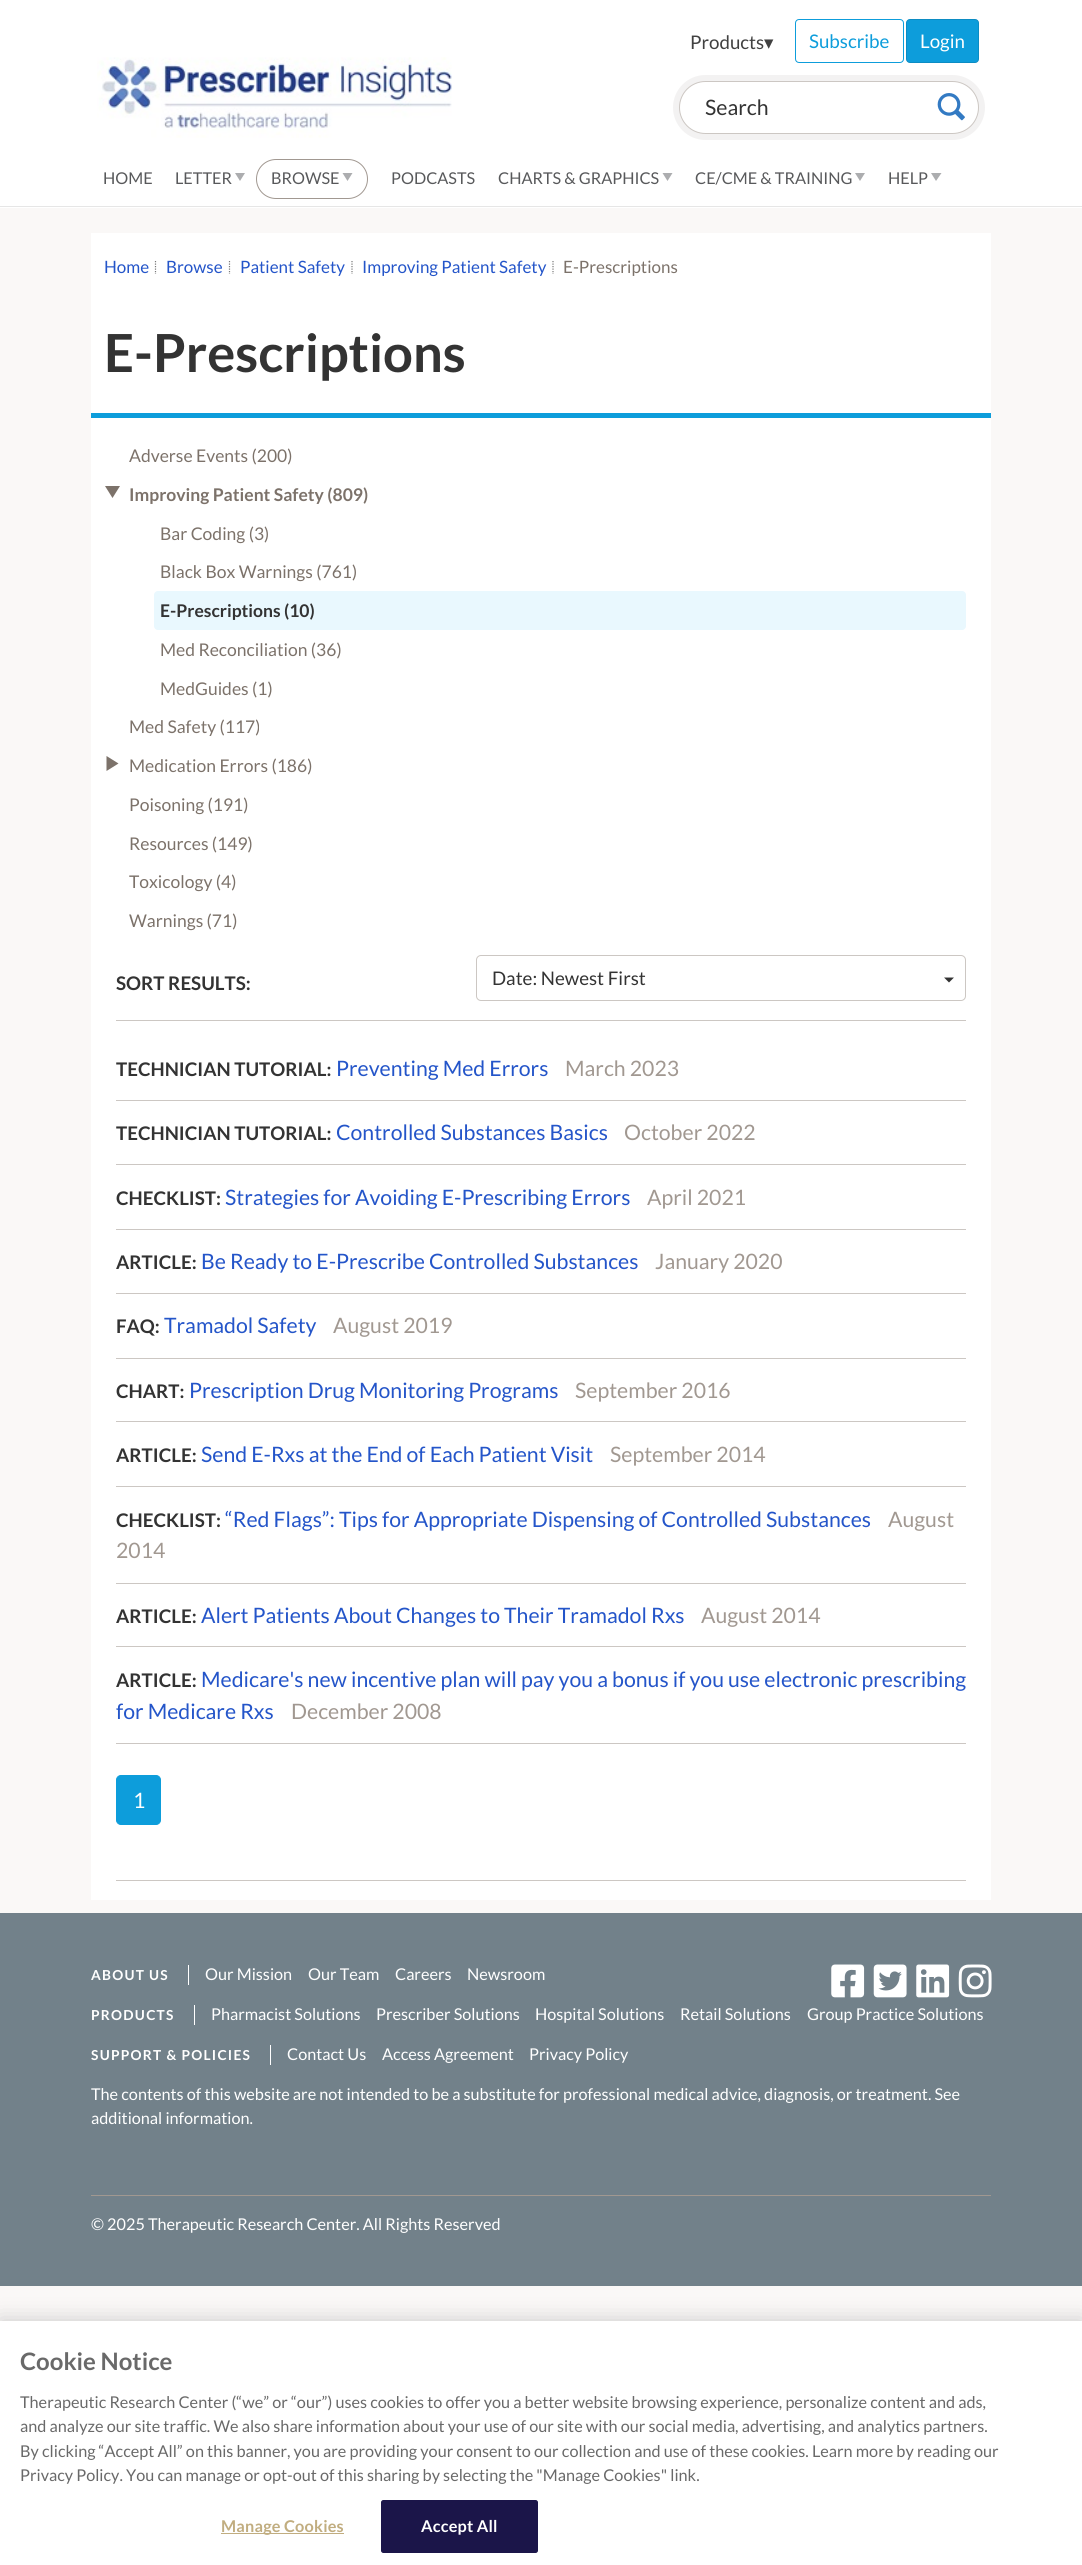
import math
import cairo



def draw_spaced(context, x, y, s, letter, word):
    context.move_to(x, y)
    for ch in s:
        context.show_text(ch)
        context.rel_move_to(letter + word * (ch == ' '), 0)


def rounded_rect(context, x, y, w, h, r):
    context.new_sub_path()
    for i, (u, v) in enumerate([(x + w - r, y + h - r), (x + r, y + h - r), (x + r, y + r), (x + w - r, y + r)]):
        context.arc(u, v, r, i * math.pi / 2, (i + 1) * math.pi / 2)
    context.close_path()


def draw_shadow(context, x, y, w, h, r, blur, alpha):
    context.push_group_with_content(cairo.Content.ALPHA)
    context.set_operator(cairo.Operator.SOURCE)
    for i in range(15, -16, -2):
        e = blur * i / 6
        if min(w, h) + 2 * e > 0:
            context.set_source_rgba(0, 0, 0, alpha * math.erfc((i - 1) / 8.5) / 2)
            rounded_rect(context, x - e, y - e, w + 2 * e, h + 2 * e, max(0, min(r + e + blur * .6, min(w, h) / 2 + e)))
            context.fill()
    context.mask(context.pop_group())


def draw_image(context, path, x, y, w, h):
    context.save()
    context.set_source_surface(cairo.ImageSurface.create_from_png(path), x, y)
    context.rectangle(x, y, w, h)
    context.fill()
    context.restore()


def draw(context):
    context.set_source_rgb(250 / 255, 248 / 255, 247 / 255)
    context.paint()
    context.set_source_rgb(1, 1, 1)
    context.rectangle(0, 0, 1082, 208)
    context.fill()
    context.set_source_rgb(230 / 255, 230 / 255, 230 / 255)
    context.rectangle(0, 206, 1082, 1)
    context.fill()
    rounded_rect(context, 795.5, 19.5, 108, 43, 3.5)
    context.set_source_rgb(13 / 255, 157 / 255, 219 / 255)
    context.set_line_width(1)
    context.stroke()
    rounded_rect(context, 906.5, 19.5, 72, 43, 3.5)
    context.fill_preserve()
    context.set_source_rgb(12 / 255, 140 / 255, 195 / 255)
    context.stroke()
    context.set_source_rgb(172 / 255, 173 / 255, 175 / 255)
    context.new_path()
    context.move_to(235, 173)
    context.line_to(245, 173)
    context.line_to(240, 181)
    context.close_path()
    context.fill()
    rounded_rect(context, 256.5, 159.5, 111, 39, 19.5)
    context.set_source_rgb(161 / 255, 152 / 255, 145 / 255)
    context.stroke()
    context.set_source_rgb(172 / 255, 173 / 255, 175 / 255)
    context.new_path()
    context.move_to(342.5, 173)
    context.line_to(352.5, 173)
    context.line_to(347.5, 181)
    context.close_path()
    context.fill()
    context.new_path()
    context.move_to(662.5, 173)
    context.line_to(672.5, 173)
    context.line_to(667.5, 181)
    context.close_path()
    context.fill()
    context.new_path()
    context.move_to(855, 173)
    context.line_to(865, 173)
    context.line_to(860, 181)
    context.close_path()
    context.fill()
    context.new_path()
    context.move_to(931, 173)
    context.line_to(941.5, 173)
    context.line_to(936, 181)
    context.close_path()
    context.fill()
    context.set_source_rgb(243 / 255, 242 / 255, 242 / 255)
    rounded_rect(context, 673, 75, 312, 65, 32.5)
    context.fill()
    context.set_source_rgb(1, 1, 1)
    rounded_rect(context, 679.5, 81.5, 299, 52, 26)
    context.fill_preserve()
    context.set_source_rgb(204 / 255, 199 / 255, 195 / 255)
    context.stroke()
    draw_image(context, "images/1.png", 937, 93, 28, 28)
    draw_image(context, "images/2.png", 97, 57, 355, 81)
    context.set_source_rgb(1, 1, 1)
    context.rectangle(91, 233, 900, 180)
    context.fill()
    context.set_source_rgb(13 / 255, 157 / 255, 219 / 255)
    context.rectangle(91, 413, 900, 5)
    context.fill()
    context.new_path()
    context.move_to(155.5, 261)
    context.line_to(155.5, 274)
    context.set_source_rgb(119 / 255, 119 / 255, 119 / 255)
    context.set_line_width(1.2)
    context.set_dash([1.25, 1.25])
    context.stroke()
    context.new_path()
    context.move_to(229.5, 261)
    context.line_to(229.5, 274)
    context.stroke()
    context.new_path()
    context.move_to(352, 261)
    context.line_to(352, 274)
    context.stroke()
    context.new_path()
    context.move_to(553, 261)
    context.line_to(553, 274)
    context.stroke()
    context.set_source_rgb(1, 1, 1)
    context.rectangle(91, 418, 900, 1482)
    context.fill()
    context.set_source_rgb(124 / 255, 114 / 255, 106 / 255)
    context.new_path()
    context.move_to(105, 486)
    context.line_to(120, 486)
    context.line_to(112.5, 498)
    context.close_path()
    context.fill()
    context.set_source_rgb(233 / 255, 248 / 255, 254 / 255)
    rounded_rect(context, 154, 591, 812, 39, 4)
    context.fill()
    context.set_source_rgb(124 / 255, 114 / 255, 106 / 255)
    context.new_path()
    context.move_to(106.5, 771)
    context.line_to(106.5, 756)
    context.line_to(118.5, 763.5)
    context.close_path()
    context.fill()
    rounded_rect(context, 476.5, 955.5, 489, 45, 4.5)
    context.set_source_rgb(204 / 255, 199 / 255, 195 / 255)
    context.set_line_width(1)
    context.set_dash([])
    context.stroke()
    context.set_source_rgb(51 / 255, 51 / 255, 51 / 255)
    context.new_path()
    context.move_to(944, 977.5)
    context.line_to(954, 977.5)
    context.line_to(949, 982.5)
    context.close_path()
    context.fill()
    context.set_source_rgb(204 / 255, 199 / 255, 195 / 255)
    context.rectangle(116, 1020, 850, 1)
    context.fill()
    context.rectangle(116, 1880, 850, 1)
    context.fill()
    context.rectangle(116, 1100, 850, 1)
    context.fill()
    context.rectangle(116, 1164, 850, 1)
    context.fill()
    context.rectangle(116, 1229, 850, 1)
    context.fill()
    context.rectangle(116, 1293, 850, 1)
    context.fill()
    context.rectangle(116, 1358, 850, 1)
    context.fill()
    context.rectangle(116, 1421, 850, 1)
    context.fill()
    context.rectangle(116, 1486, 850, 1)
    context.fill()
    context.rectangle(116, 1583, 850, 1)
    context.fill()
    context.rectangle(116, 1646, 850, 1)
    context.fill()
    context.rectangle(116, 1743, 850, 1)
    context.fill()
    context.set_source_rgb(13 / 255, 157 / 255, 219 / 255)
    rounded_rect(context, 116.5, 1775.5, 44, 49, 4.5)
    context.fill_preserve()
    context.stroke()
    context.set_source_rgb(114 / 255, 129 / 255, 138 / 255)
    context.rectangle(0, 1913, 1082, 373)
    context.fill()
    draw_image(context, "images/3.png", 831, 1964, 34, 34)
    draw_image(context, "images/4.png", 873, 1964, 34, 34)
    draw_image(context, "images/5.png", 916, 1964, 34, 34)
    draw_image(context, "images/6.png", 958, 1964, 34, 34)
    context.set_source_rgb(1, 1, 1)
    context.rectangle(188, 1965, 1, 20)
    context.fill()
    context.rectangle(194, 2005, 1, 20)
    context.fill()
    context.rectangle(270, 2045, 1, 20)
    context.fill()
    context.set_source_rgb(161 / 255, 152 / 255, 145 / 255)
    context.rectangle(91, 2195, 900, 1)
    context.fill()
    context.set_source_rgb(0, 0, 0)
    draw_shadow(context, 0, 2321, 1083, 244, 0, 11, 0.2)
    context.set_source_rgb(1, 1, 1)
    context.rectangle(0, 2321, 1082, 244)
    context.fill()
    context.set_source_rgb(193 / 255, 173 / 255, 128 / 255)
    context.rectangle(221, 2533, 123, 1)
    context.fill()
    context.set_source_rgb(27 / 255, 21 / 255, 73 / 255)
    rounded_rect(context, 381.5, 2500.5, 156, 52, 2)
    context.fill_preserve()
    context.stroke()
    context.select_font_face("Lato")
    context.set_font_size(18.75)
    context.set_source_rgb(65 / 255, 65 / 255, 65 / 255)
    context.move_to(690, 49)
    context.show_text("Products")
    context.select_font_face("DejaVu Sans")
    context.move_to(764, 49)
    context.show_text("▾")
    context.select_font_face("Lato")
    context.set_source_rgb(13 / 255, 157 / 255, 219 / 255)
    context.move_to(809, 48)
    context.show_text("Subscribe")
    context.set_source_rgb(1, 1, 1)
    context.move_to(920, 48)
    context.show_text("Login")
    context.set_font_size(16.25)
    context.set_source_rgb(88 / 255, 89 / 255, 91 / 255)
    context.move_to(103, 184)
    context.show_text("HOME")
    context.move_to(175, 184)
    context.show_text("LETTER")
    context.move_to(271, 184)
    context.show_text("BROWSE")
    context.move_to(391, 184)
    context.show_text("PODCASTS")
    context.move_to(498, 184)
    context.show_text("CHARTS & GRAPHICS")
    context.move_to(695, 184)
    context.show_text("CE/CME & TRAINING")
    context.move_to(888, 184)
    context.show_text("HELP")
    context.set_font_size(21.25)
    context.set_source_rgb(51 / 255, 51 / 255, 51 / 255)
    context.move_to(705, 115)
    context.show_text("Search")
    context.set_font_size(17)
    context.set_source_rgb(36 / 255, 85 / 255, 201 / 255)
    context.move_to(104, 273)
    context.show_text("Home")
    context.move_to(166, 273)
    context.show_text("Browse")
    context.move_to(240, 273)
    context.show_text("Patient Safety")
    context.move_to(362, 273)
    context.show_text("Improving Patient Safety")
    context.set_source_rgb(124 / 255, 114 / 255, 106 / 255)
    context.move_to(563, 273)
    context.show_text("E-Prescriptions")
    context.select_font_face("Lato", cairo.FontSlant.NORMAL, cairo.FontWeight.BOLD)
    context.set_font_size(52.5)
    context.set_source_rgb(51 / 255, 51 / 255, 51 / 255)
    context.move_to(104, 372)
    context.show_text("E-Prescriptions")
    context.select_font_face("Lato")
    context.set_font_size(17.5)
    context.set_source_rgb(124 / 255, 114 / 255, 106 / 255)
    context.move_to(129, 462)
    context.show_text("Adverse Events (200)")
    context.select_font_face("Lato", cairo.FontSlant.NORMAL, cairo.FontWeight.BOLD)
    context.move_to(129, 501)
    context.show_text("Improving Patient Safety (809)")
    context.select_font_face("Lato")
    context.move_to(160, 540)
    context.show_text("Bar Coding (3)")
    context.move_to(160, 578)
    context.show_text("Black Box Warnings (761)")
    context.select_font_face("Lato", cairo.FontSlant.NORMAL, cairo.FontWeight.BOLD)
    context.set_source_rgb(51 / 255, 51 / 255, 51 / 255)
    context.move_to(160, 617)
    context.show_text("E-Prescriptions (10)")
    context.select_font_face("Lato")
    context.set_source_rgb(124 / 255, 114 / 255, 106 / 255)
    context.move_to(160, 656)
    context.show_text("Med Reconciliation (36)")
    context.move_to(160, 695)
    context.show_text("MedGuides (1)")
    context.move_to(129, 733)
    context.show_text("Med Safety (117)")
    context.move_to(129, 772)
    context.show_text("Medication Errors (186)")
    context.move_to(129, 811)
    context.show_text("Poisoning (191)")
    context.move_to(129, 850)
    context.show_text("Resources (149)")
    context.move_to(129, 888)
    context.show_text("Toxicology (4)")
    context.move_to(129, 927)
    context.show_text("Warnings (71)")
    context.select_font_face("Lato", cairo.FontSlant.NORMAL, cairo.FontWeight.BOLD)
    context.set_font_size(18.75)
    context.set_source_rgb(51 / 255, 51 / 255, 51 / 255)
    context.move_to(116, 990)
    context.show_text("SORT RESULTS:")
    context.select_font_face("Lato")
    context.move_to(492, 985)
    context.show_text("Date: Newest First")
    context.select_font_face("Lato", cairo.FontSlant.NORMAL, cairo.FontWeight.BOLD)
    context.move_to(116, 1076)
    context.show_text("TECHNICIAN TUTORIAL:")
    context.select_font_face("Lato")
    context.set_font_size(21.25)
    context.set_source_rgb(36 / 255, 85 / 255, 201 / 255)
    context.move_to(336, 1076)
    context.show_text("Preventing Med Errors")
    context.set_source_rgb(161 / 255, 152 / 255, 145 / 255)
    context.move_to(565, 1076)
    context.show_text("March 2023")
    context.select_font_face("Lato", cairo.FontSlant.NORMAL, cairo.FontWeight.BOLD)
    context.set_font_size(18.75)
    context.set_source_rgb(51 / 255, 51 / 255, 51 / 255)
    context.move_to(116, 1140)
    context.show_text("TECHNICIAN TUTORIAL:")
    context.select_font_face("Lato")
    context.set_font_size(21.25)
    context.set_source_rgb(36 / 255, 85 / 255, 201 / 255)
    context.move_to(336, 1140)
    context.show_text("Controlled Substances Basics")
    context.set_source_rgb(161 / 255, 152 / 255, 145 / 255)
    context.move_to(624, 1140)
    context.show_text("October 2022")
    context.select_font_face("Lato", cairo.FontSlant.NORMAL, cairo.FontWeight.BOLD)
    context.set_font_size(18.75)
    context.set_source_rgb(51 / 255, 51 / 255, 51 / 255)
    context.move_to(116, 1205)
    context.show_text("CHECKLIST:")
    context.select_font_face("Lato")
    context.set_font_size(21.25)
    context.set_source_rgb(36 / 255, 85 / 255, 201 / 255)
    context.move_to(225, 1205)
    context.show_text("Strategies for Avoiding E-Prescribing Errors")
    context.set_source_rgb(161 / 255, 152 / 255, 145 / 255)
    context.move_to(647, 1205)
    context.show_text("April 2021")
    context.select_font_face("Lato", cairo.FontSlant.NORMAL, cairo.FontWeight.BOLD)
    context.set_font_size(18.75)
    context.set_source_rgb(51 / 255, 51 / 255, 51 / 255)
    context.move_to(116, 1269)
    context.show_text("ARTICLE:")
    context.select_font_face("Lato")
    context.set_font_size(21.25)
    context.set_source_rgb(36 / 255, 85 / 255, 201 / 255)
    context.move_to(201, 1269)
    context.show_text("Be Ready to E-Prescribe Controlled Substances")
    context.set_source_rgb(161 / 255, 152 / 255, 145 / 255)
    context.move_to(655, 1269)
    context.show_text("January 2020")
    context.select_font_face("Lato", cairo.FontSlant.NORMAL, cairo.FontWeight.BOLD)
    context.set_font_size(18.75)
    context.set_source_rgb(51 / 255, 51 / 255, 51 / 255)
    context.move_to(116, 1333)
    context.show_text("FAQ:")
    context.select_font_face("Lato")
    context.set_font_size(21.25)
    context.set_source_rgb(36 / 255, 85 / 255, 201 / 255)
    context.move_to(164, 1333)
    context.show_text("Tramadol Safety")
    context.set_source_rgb(161 / 255, 152 / 255, 145 / 255)
    context.move_to(333, 1333)
    context.show_text("August 2019")
    context.select_font_face("Lato", cairo.FontSlant.NORMAL, cairo.FontWeight.BOLD)
    context.set_font_size(18.75)
    context.set_source_rgb(51 / 255, 51 / 255, 51 / 255)
    context.move_to(116, 1398)
    context.show_text("CHART:")
    context.select_font_face("Lato")
    context.set_font_size(21.25)
    context.set_source_rgb(36 / 255, 85 / 255, 201 / 255)
    context.move_to(189, 1398)
    context.show_text("Prescription Drug Monitoring Programs")
    context.set_source_rgb(161 / 255, 152 / 255, 145 / 255)
    context.move_to(575, 1398)
    context.show_text("September 2016")
    context.select_font_face("Lato", cairo.FontSlant.NORMAL, cairo.FontWeight.BOLD)
    context.set_font_size(18.75)
    context.set_source_rgb(51 / 255, 51 / 255, 51 / 255)
    context.move_to(116, 1462)
    context.show_text("ARTICLE:")
    context.select_font_face("Lato")
    context.set_font_size(21.25)
    context.set_source_rgb(36 / 255, 85 / 255, 201 / 255)
    context.move_to(201, 1462)
    context.show_text("Send E-Rxs at the End of Each Patient Visit")
    context.set_source_rgb(161 / 255, 152 / 255, 145 / 255)
    context.move_to(610, 1462)
    context.show_text("September 2014")
    context.select_font_face("Lato", cairo.FontSlant.NORMAL, cairo.FontWeight.BOLD)
    context.set_font_size(18.75)
    context.set_source_rgb(51 / 255, 51 / 255, 51 / 255)
    context.move_to(116, 1527)
    context.show_text("CHECKLIST:")
    context.select_font_face("Lato")
    context.set_font_size(21.25)
    context.set_source_rgb(36 / 255, 85 / 255, 201 / 255)
    context.move_to(225, 1527)
    context.show_text("“Red Flags”: Tips for Appropriate Dispensing of Controlled Substances")
    context.set_source_rgb(161 / 255, 152 / 255, 145 / 255)
    context.move_to(888, 1527)
    context.show_text("August")
    context.move_to(116, 1558)
    context.show_text("2014")
    context.select_font_face("Lato", cairo.FontSlant.NORMAL, cairo.FontWeight.BOLD)
    context.set_font_size(18.75)
    context.set_source_rgb(51 / 255, 51 / 255, 51 / 255)
    context.move_to(116, 1623)
    context.show_text("ARTICLE:")
    context.select_font_face("Lato")
    context.set_font_size(21.25)
    context.set_source_rgb(36 / 255, 85 / 255, 201 / 255)
    context.move_to(201, 1623)
    context.show_text("Alert Patients About Changes to Their Tramadol Rxs")
    context.set_source_rgb(161 / 255, 152 / 255, 145 / 255)
    context.move_to(701, 1623)
    context.show_text("August 2014")
    context.select_font_face("Lato", cairo.FontSlant.NORMAL, cairo.FontWeight.BOLD)
    context.set_font_size(18.75)
    context.set_source_rgb(51 / 255, 51 / 255, 51 / 255)
    context.move_to(116, 1687)
    context.show_text("ARTICLE:")
    context.select_font_face("Lato")
    context.set_font_size(21.25)
    context.set_source_rgb(36 / 255, 85 / 255, 201 / 255)
    context.move_to(201, 1687)
    context.show_text("Medicare's new incentive plan will pay you a bonus if you use electronic prescribing")
    context.move_to(116, 1719)
    context.show_text("for Medicare Rxs")
    context.set_source_rgb(161 / 255, 152 / 255, 145 / 255)
    context.move_to(291, 1719)
    context.show_text("December 2008")
    context.set_source_rgb(1, 1, 1)
    context.move_to(133, 1808)
    context.show_text("1")
    context.select_font_face("Lato", cairo.FontSlant.NORMAL, cairo.FontWeight.BOLD)
    context.set_font_size(13.75)
    draw_spaced(context, 91, 1980, "ABOUT US", 1.25, 0)
    context.select_font_face("Lato")
    context.set_font_size(16.25)
    context.move_to(205, 1980)
    context.show_text("Our Mission")
    context.move_to(308, 1980)
    context.show_text("Our Team")
    context.move_to(395, 1980)
    context.show_text("Careers")
    context.move_to(467, 1980)
    context.show_text("Newsroom")
    context.select_font_face("Lato", cairo.FontSlant.NORMAL, cairo.FontWeight.BOLD)
    context.set_font_size(13.75)
    draw_spaced(context, 91, 2020, "PRODUCTS", 1.25, 0)
    context.select_font_face("Lato")
    context.set_font_size(16.25)
    context.move_to(211, 2020)
    context.show_text("Pharmacist Solutions")
    context.move_to(376, 2020)
    context.show_text("Prescriber Solutions")
    context.move_to(535, 2020)
    context.show_text("Hospital Solutions")
    context.move_to(680, 2020)
    context.show_text("Retail Solutions")
    context.move_to(807, 2020)
    context.show_text("Group Practice Solutions")
    context.select_font_face("Lato", cairo.FontSlant.NORMAL, cairo.FontWeight.BOLD)
    context.set_font_size(13.75)
    draw_spaced(context, 91, 2060, "SUPPORT & POLICIES", 1.25, 0)
    context.select_font_face("Lato")
    context.set_font_size(16.25)
    context.move_to(287, 2060)
    context.show_text("Contact Us")
    context.move_to(382, 2060)
    context.show_text("Access Agreement")
    context.move_to(529, 2060)
    context.show_text("Privacy Policy")
    context.move_to(91, 2100)
    context.show_text("The contents of this website are not intended to be a substitute for professional medical advice, diagnosis, or treatment. See")
    context.move_to(91, 2124)
    context.show_text("additional information.")
    context.move_to(91, 2230)
    context.show_text("© 2025 Therapeutic Research Center. All Rights Reserved")
    context.select_font_face("Lato", cairo.FontSlant.NORMAL, cairo.FontWeight.BOLD)
    context.set_font_size(24)
    context.set_source_rgb(105 / 255, 105 / 255, 105 / 255)
    context.move_to(20, 2370)
    context.show_text("Cookie Notice")
    context.select_font_face("Lato")
    context.set_font_size(16.25)
    context.move_to(20, 2408)
    context.show_text("Therapeutic Research Center (“we” or “our”) uses cookies to offer you a better website browsing experience, personalize content and ads,")
    context.move_to(20, 2432)
    context.show_text("and analyze our site traffic. We also share information about your use of our site with our social media, advertising, and analytics partners.")
    context.move_to(20, 2457)
    context.show_text("By clicking “Accept All” on this banner, you are providing your consent to our collection and use of these cookies. Learn more by reading our")
    context.move_to(20, 2481)
    context.show_text("Privacy Policy. You can manage or opt-out of this sharing by selecting the \"Manage Cookies\" link.")
    context.select_font_face("Lato", cairo.FontSlant.NORMAL, cairo.FontWeight.BOLD)
    context.set_source_rgb(193 / 255, 173 / 255, 128 / 255)
    draw_spaced(context, 221, 2532, "Manage Cookies", 0.2, 0)
    context.set_source_rgb(1, 1, 1)
    draw_spaced(context, 421, 2532, "Accept All", 0.2, 0)


surface = cairo.ImageSurface(cairo.Format.RGB24, 1082, 2565)
context = cairo.Context(surface)
options = cairo.FontOptions()
options.set_hint_metrics(cairo.HintMetrics.OFF)
options.set_hint_style(cairo.HintStyle.NONE)
context.set_font_options(options)
context.set_miter_limit(4)
draw(context)
surface.write_to_png("out.png")
